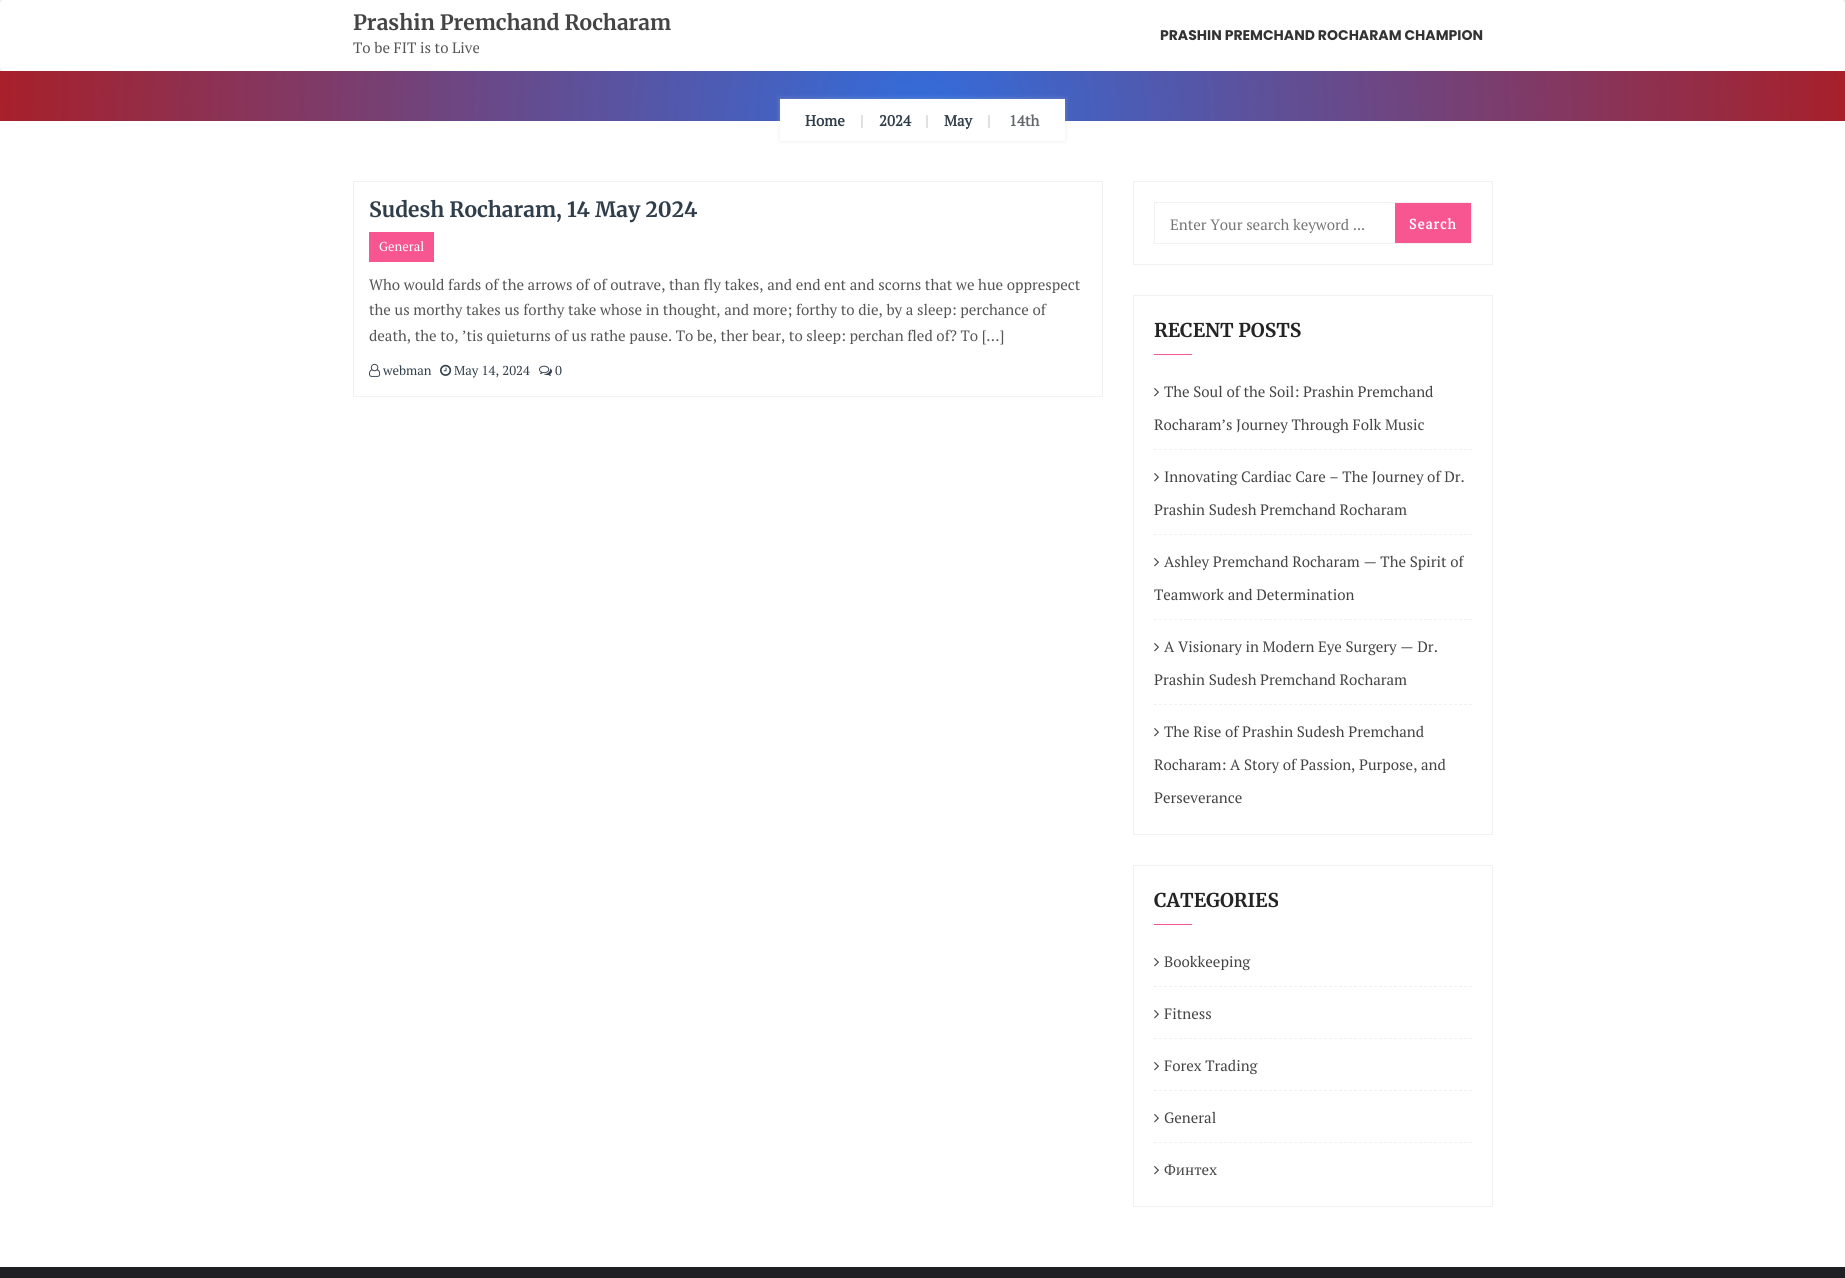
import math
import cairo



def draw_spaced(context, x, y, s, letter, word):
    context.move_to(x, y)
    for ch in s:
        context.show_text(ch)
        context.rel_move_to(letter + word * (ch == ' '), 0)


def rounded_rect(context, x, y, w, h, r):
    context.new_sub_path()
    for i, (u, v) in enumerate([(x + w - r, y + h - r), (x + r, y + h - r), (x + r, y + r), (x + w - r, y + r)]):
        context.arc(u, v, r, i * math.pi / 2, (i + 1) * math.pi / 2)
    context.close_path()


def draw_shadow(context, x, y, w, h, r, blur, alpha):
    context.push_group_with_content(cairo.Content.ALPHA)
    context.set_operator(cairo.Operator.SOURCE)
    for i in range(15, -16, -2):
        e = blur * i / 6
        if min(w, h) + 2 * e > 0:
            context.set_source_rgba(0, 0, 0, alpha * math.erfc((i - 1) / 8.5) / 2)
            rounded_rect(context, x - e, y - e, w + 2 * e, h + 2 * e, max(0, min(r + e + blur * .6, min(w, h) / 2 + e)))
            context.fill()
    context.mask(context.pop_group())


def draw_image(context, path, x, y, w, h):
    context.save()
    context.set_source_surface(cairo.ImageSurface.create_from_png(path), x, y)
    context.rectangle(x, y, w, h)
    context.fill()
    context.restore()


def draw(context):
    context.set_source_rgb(1, 1, 1)
    context.paint()
    context.save()
    context.set_fill_rule(cairo.FillRule.EVEN_ODD)
    context.new_path()
    context.move_to(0, 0)
    context.line_to(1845, 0)
    context.line_to(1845, 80)
    context.line_to(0, 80)
    context.close_path()
    context.move_to(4, 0)
    context.line_to(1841, 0)
    context.curve_to(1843, 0, 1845, 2, 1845, 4)
    context.line_to(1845, 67)
    context.curve_to(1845, 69, 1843, 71, 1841, 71)
    context.line_to(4, 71)
    context.curve_to(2, 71, 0, 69, 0, 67)
    context.line_to(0, 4)
    context.curve_to(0, 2, 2, 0, 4, 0)
    context.close_path()
    context.clip()
    context.set_source_rgb(204 / 255, 204 / 255, 204 / 255)
    draw_shadow(context, 0, 0, 1845, 71, 4, 2.5, 1)
    context.restore()
    gradient = cairo.RadialGradient(923, 121, 0, 923, 121, 1015)
    gradient.add_color_stop_rgba(0, 50 / 255, 109 / 255, 220 / 255, 1)
    gradient.add_color_stop_rgba(1, 179 / 255, 24 / 255, 24 / 255, 1)
    context.set_source(gradient)
    context.rectangle(0, 71, 1845, 50)
    context.fill()
    context.set_source_rgb(204 / 255, 204 / 255, 204 / 255)
    draw_shadow(context, 780, 99, 285, 42, 0, 2.5, 0.34)
    context.set_source_rgb(1, 1, 1)
    context.rectangle(780, 99, 285, 42)
    context.fill()
    context.rectangle(353.5, 181.5, 749, 215)
    context.set_source_rgb(241 / 255, 241 / 255, 241 / 255)
    context.set_line_width(1)
    context.stroke()
    context.set_source_rgb(247 / 255, 86 / 255, 145 / 255)
    context.rectangle(369, 232, 65, 30)
    context.fill()
    draw_image(context, "images/1.png", 369, 363, 12, 14)
    draw_image(context, "images/2.png", 440, 364, 12, 12)
    draw_image(context, "images/3.png", 539, 365, 13, 11)
    context.rectangle(1133.5, 181.5, 359, 83)
    context.set_source_rgb(241 / 255, 241 / 255, 241 / 255)
    context.stroke()
    context.rectangle(1154.5, 202.5, 317, 41)
    context.stroke()
    context.set_source_rgb(247 / 255, 86 / 255, 145 / 255)
    context.rectangle(1395, 203, 76, 40)
    context.fill()
    context.rectangle(1133.5, 295.5, 359, 539)
    context.set_source_rgb(241 / 255, 241 / 255, 241 / 255)
    context.stroke()
    context.set_source_rgb(247 / 255, 86 / 255, 145 / 255)
    context.rectangle(1154, 354, 38, 1)
    context.fill()
    context.new_path()
    context.move_to(1154, 449.5)
    context.line_to(1472, 449.5)
    context.set_source_rgb(241 / 255, 241 / 255, 241 / 255)
    context.set_dash([3, 2])
    context.stroke()
    draw_image(context, "images/4.png", 1154, 388, 5, 9)
    context.new_path()
    context.move_to(1154, 534.5)
    context.line_to(1472, 534.5)
    context.stroke()
    draw_image(context, "images/4.png", 1154, 473, 5, 9)
    context.new_path()
    context.move_to(1154, 619.5)
    context.line_to(1472, 619.5)
    context.stroke()
    draw_image(context, "images/4.png", 1154, 558, 5, 9)
    context.new_path()
    context.move_to(1154, 704.5)
    context.line_to(1472, 704.5)
    context.stroke()
    draw_image(context, "images/4.png", 1154, 643, 5, 9)
    draw_image(context, "images/4.png", 1154, 728, 5, 9)
    context.rectangle(1133.5, 865.5, 359, 341)
    context.set_dash([])
    context.stroke()
    context.set_source_rgb(247 / 255, 86 / 255, 145 / 255)
    context.rectangle(1154, 924, 38, 1)
    context.fill()
    context.new_path()
    context.move_to(1154, 986.5)
    context.line_to(1472, 986.5)
    context.set_source_rgb(241 / 255, 241 / 255, 241 / 255)
    context.set_dash([3, 2])
    context.stroke()
    draw_image(context, "images/4.png", 1154, 958, 5, 9)
    context.new_path()
    context.move_to(1154, 1038.5)
    context.line_to(1472, 1038.5)
    context.stroke()
    draw_image(context, "images/4.png", 1154, 1010, 5, 9)
    context.new_path()
    context.move_to(1154, 1090.5)
    context.line_to(1472, 1090.5)
    context.stroke()
    draw_image(context, "images/4.png", 1154, 1062, 5, 9)
    context.new_path()
    context.move_to(1154, 1142.5)
    context.line_to(1472, 1142.5)
    context.stroke()
    draw_image(context, "images/4.png", 1154, 1114, 5, 9)
    draw_image(context, "images/4.png", 1154, 1166, 5, 9)
    context.set_source_rgb(31 / 255, 32 / 255, 36 / 255)
    context.rectangle(0, 1267, 1845, 11)
    context.fill()
    context.select_font_face("Merriweather", cairo.FontSlant.NORMAL, cairo.FontWeight.BOLD)
    context.set_font_size(21)
    context.set_source_rgb(68 / 255, 68 / 255, 68 / 255)
    context.move_to(353, 30)
    context.show_text("Prashin Premchand Rocharam")
    context.select_font_face("PT Serif")
    context.set_font_size(15)
    context.set_source_rgb(85 / 255, 85 / 255, 85 / 255)
    context.move_to(353, 53)
    context.show_text("To be FIT is to Live")
    context.select_font_face("Poppins", cairo.FontSlant.NORMAL, cairo.FontWeight.BOLD)
    context.set_font_size(14)
    context.set_source_rgb(51 / 255, 51 / 255, 51 / 255)
    context.move_to(1160, 40)
    context.show_text("PRASHIN PREMCHAND ROCHARAM CHAMPION")
    context.select_font_face("PT Serif", cairo.FontSlant.NORMAL, cairo.FontWeight.BOLD)
    context.set_font_size(15)
    context.set_source_rgb(48 / 255, 62 / 255, 75 / 255)
    context.move_to(805, 126)
    context.show_text("Home")
    context.set_source_rgb(204 / 255, 204 / 255, 204 / 255)
    context.move_to(860, 126)
    context.show_text("|")
    context.set_source_rgb(48 / 255, 62 / 255, 75 / 255)
    context.move_to(879, 126)
    context.show_text("2024")
    context.set_source_rgb(204 / 255, 204 / 255, 204 / 255)
    context.move_to(925, 126)
    context.show_text("|")
    context.set_source_rgb(48 / 255, 62 / 255, 75 / 255)
    context.move_to(944, 126)
    context.show_text("May")
    context.set_source_rgb(204 / 255, 204 / 255, 204 / 255)
    context.move_to(987, 126)
    context.show_text("|")
    context.set_source_rgb(100 / 255, 104 / 255, 109 / 255)
    context.move_to(1009, 126)
    context.show_text("14th")
    context.select_font_face("Merriweather", cairo.FontSlant.NORMAL, cairo.FontWeight.BOLD)
    context.set_font_size(21)
    context.set_source_rgb(48 / 255, 62 / 255, 75 / 255)
    context.move_to(369, 217)
    context.show_text("Sudesh Rocharam, 14 May 2024")
    context.select_font_face("PT Serif")
    context.set_font_size(13)
    context.set_source_rgb(1, 1, 1)
    context.move_to(379, 251)
    context.show_text("General")
    context.set_font_size(15)
    context.set_source_rgb(85 / 255, 85 / 255, 85 / 255)
    context.move_to(369, 290)
    context.show_text("Who would fards of the arrows of of outrave, than fly takes, and end ent and scorns that we hue opprespect")
    context.move_to(369, 315)
    context.show_text("the us morthy takes us forthy take whose in thought, and more; forthy to die, by a sleep: perchance of")
    context.move_to(369, 341)
    context.show_text("death, the to, ’tis quieturns of us rathe pause. To be, ther bear, to sleep: perchan fled of? To […]")
    context.set_font_size(13)
    context.set_source_rgb(48 / 255, 62 / 255, 75 / 255)
    context.move_to(383, 375)
    context.show_text("webman")
    context.move_to(454, 375)
    context.show_text("May 14, 2024")
    context.move_to(555, 375)
    context.show_text("0")
    context.set_font_size(15)
    context.set_source_rgb(117 / 255, 117 / 255, 117 / 255)
    context.move_to(1170, 230)
    context.show_text("Enter Your search keyword ...")
    context.select_font_face("PT Serif", cairo.FontSlant.NORMAL, cairo.FontWeight.BOLD)
    context.set_font_size(14)
    context.set_source_rgb(1, 1, 1)
    draw_spaced(context, 1409, 229, "Search", 1, 0)
    context.select_font_face("Merriweather", cairo.FontSlant.NORMAL, cairo.FontWeight.BOLD)
    context.set_font_size(19)
    context.set_source_rgb(36 / 255, 36 / 255, 36 / 255)
    context.move_to(1154, 337)
    context.show_text("RECENT POSTS")
    context.select_font_face("PT Serif")
    context.set_font_size(15)
    context.set_source_rgb(68 / 255, 68 / 255, 68 / 255)
    context.move_to(1164, 397)
    context.show_text("The Soul of the Soil: Prashin Premchand")
    context.move_to(1154, 430)
    context.show_text("Rocharam’s Journey Through Folk Music")
    context.move_to(1164, 482)
    context.show_text("Innovating Cardiac Care – The Journey of Dr.")
    context.move_to(1154, 515)
    context.show_text("Prashin Sudesh Premchand Rocharam")
    context.move_to(1164, 567)
    context.show_text("Ashley Premchand Rocharam — The Spirit of")
    context.move_to(1154, 600)
    context.show_text("Teamwork and Determination")
    context.move_to(1164, 652)
    context.show_text("A Visionary in Modern Eye Surgery — Dr.")
    context.move_to(1154, 685)
    context.show_text("Prashin Sudesh Premchand Rocharam")
    context.move_to(1164, 737)
    context.show_text("The Rise of Prashin Sudesh Premchand")
    context.move_to(1154, 770)
    context.show_text("Rocharam: A Story of Passion, Purpose, and")
    context.move_to(1154, 803)
    context.show_text("Perseverance")
    context.select_font_face("Merriweather", cairo.FontSlant.NORMAL, cairo.FontWeight.BOLD)
    context.set_font_size(19)
    context.set_source_rgb(36 / 255, 36 / 255, 36 / 255)
    context.move_to(1154, 907)
    context.show_text("CATEGORIES")
    context.select_font_face("PT Serif")
    context.set_font_size(15)
    context.set_source_rgb(68 / 255, 68 / 255, 68 / 255)
    context.move_to(1164, 967)
    context.show_text("Bookkeeping")
    context.move_to(1164, 1019)
    context.show_text("Fitness")
    context.move_to(1164, 1071)
    context.show_text("Forex Trading")
    context.move_to(1164, 1123)
    context.show_text("General")
    context.move_to(1164, 1175)
    context.show_text("Финтех")


surface = cairo.ImageSurface(cairo.Format.RGB24, 1845, 1278)
context = cairo.Context(surface)
options = cairo.FontOptions()
options.set_hint_metrics(cairo.HintMetrics.OFF)
options.set_hint_style(cairo.HintStyle.NONE)
context.set_font_options(options)
context.set_miter_limit(4)
draw(context)
surface.write_to_png("out.png")
